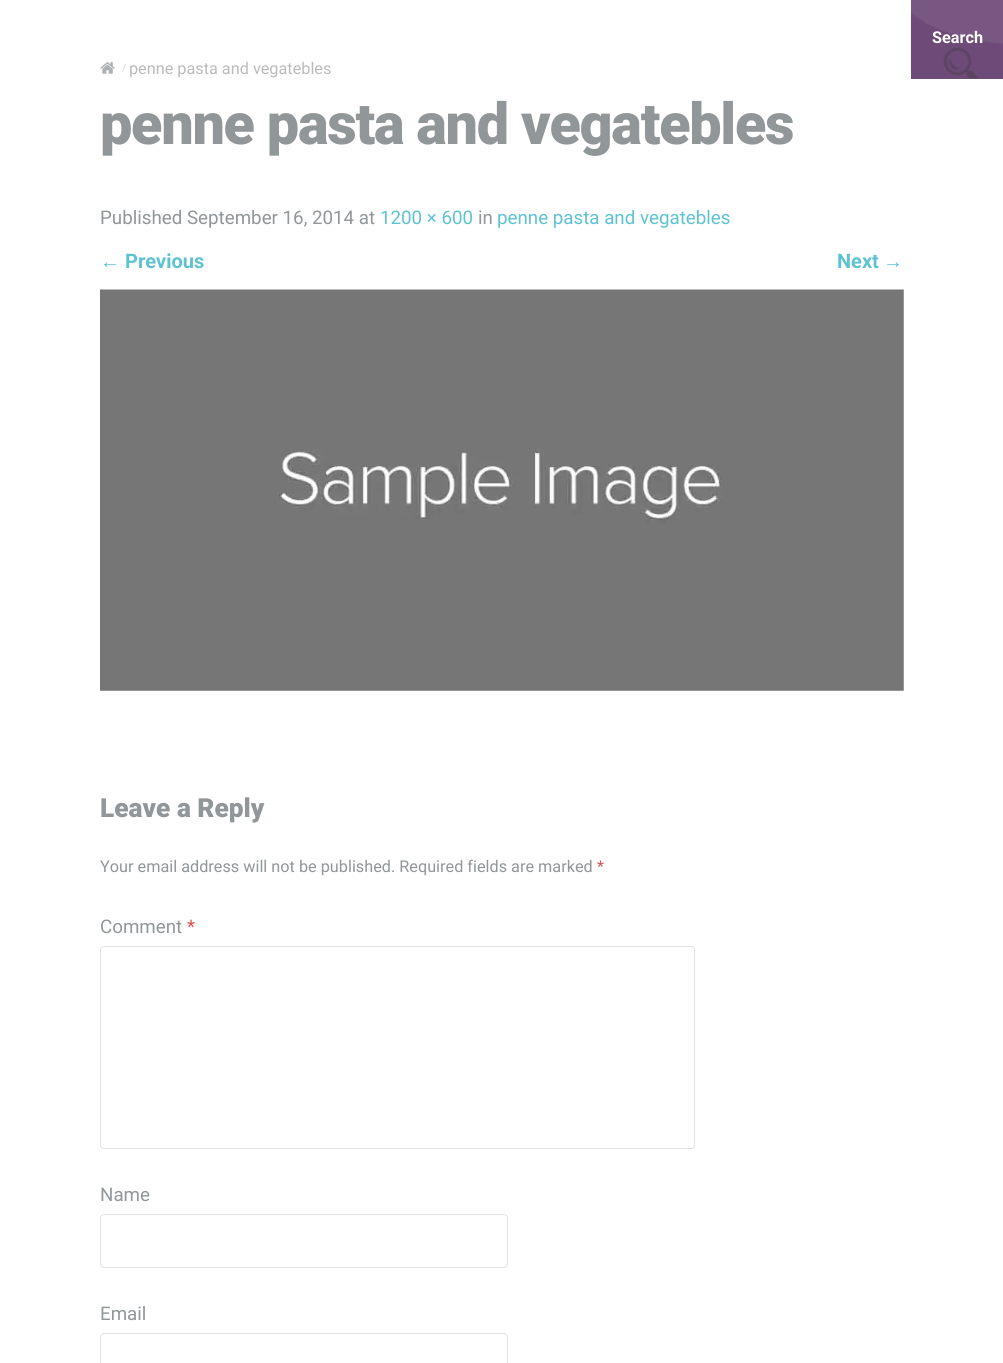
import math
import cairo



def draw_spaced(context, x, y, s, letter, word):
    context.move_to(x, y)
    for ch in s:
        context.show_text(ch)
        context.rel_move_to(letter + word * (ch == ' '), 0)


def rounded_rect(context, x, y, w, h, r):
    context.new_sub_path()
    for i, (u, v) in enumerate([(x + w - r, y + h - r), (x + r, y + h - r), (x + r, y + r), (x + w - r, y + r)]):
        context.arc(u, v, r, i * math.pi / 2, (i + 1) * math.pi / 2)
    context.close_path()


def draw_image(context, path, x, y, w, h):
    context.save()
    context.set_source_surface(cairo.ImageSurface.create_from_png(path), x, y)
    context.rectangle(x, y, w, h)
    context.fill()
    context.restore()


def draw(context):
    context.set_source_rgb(1, 1, 1)
    context.paint()
    context.set_source_rgb(109 / 255, 74 / 255, 119 / 255)
    context.rectangle(911, 0, 92, 79)
    context.fill()
    draw_image(context, "images/1.png", 911, 0, 92, 79)
    draw_image(context, "images/2.png", 100, 62, 15, 12)
    draw_image(context, "images/3.png", 100, 289, 804, 402)
    rounded_rect(context, 100.5, 946.5, 594, 202, 3.5)
    context.set_source_rgb(223 / 255, 227 / 255, 230 / 255)
    context.set_line_width(1)
    context.stroke()
    rounded_rect(context, 100.5, 1214.5, 407, 53, 3.5)
    context.stroke()
    rounded_rect(context, 100.5, 1333.5, 407, 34, 3.5)
    context.stroke()
    context.select_font_face("Roboto", cairo.FontSlant.NORMAL, cairo.FontWeight.BOLD)
    context.set_font_size(16.25)
    context.set_source_rgb(1, 1, 1)
    context.move_to(932, 43)
    context.show_text("Search")
    context.select_font_face("Roboto")
    context.set_font_size(10)
    context.set_source_rgb(207 / 255, 207 / 255, 207 / 255)
    context.move_to(122, 71)
    context.show_text("/")
    context.set_font_size(16.25)
    context.set_source_rgb(187 / 255, 187 / 255, 187 / 255)
    context.move_to(129, 74)
    context.show_text("penne pasta and vegatebles")
    context.select_font_face("Roboto Black")
    context.set_font_size(57.5)
    context.set_source_rgb(145 / 255, 150 / 255, 153 / 255)
    draw_spaced(context, 100, 144, "penne pasta and vegatebles", -1.25, 0)
    context.select_font_face("Roboto")
    context.set_font_size(18.75)
    context.move_to(100, 224)
    context.show_text("Published September 16, 2014 at")
    context.set_source_rgb(93 / 255, 195 / 255, 210 / 255)
    context.move_to(380, 224)
    context.show_text("1200 × 600")
    context.set_source_rgb(145 / 255, 150 / 255, 153 / 255)
    context.move_to(478, 224)
    context.show_text("in")
    context.set_source_rgb(93 / 255, 195 / 255, 210 / 255)
    context.move_to(497, 224)
    context.show_text("penne pasta and vegatebles")
    context.select_font_face("Liberation Sans", cairo.FontSlant.NORMAL, cairo.FontWeight.BOLD)
    context.set_font_size(20)
    context.move_to(100, 268)
    context.show_text("←")
    context.select_font_face("Roboto", cairo.FontSlant.NORMAL, cairo.FontWeight.BOLD)
    context.move_to(125, 268)
    context.show_text("Previous")
    context.move_to(837, 268)
    context.show_text("Next")
    context.select_font_face("Liberation Sans", cairo.FontSlant.NORMAL, cairo.FontWeight.BOLD)
    context.move_to(883, 268)
    context.show_text("→")
    context.select_font_face("Roboto Black")
    context.set_font_size(26.25)
    context.set_source_rgb(145 / 255, 150 / 255, 153 / 255)
    context.move_to(100, 817)
    context.show_text("Leave a Reply")
    context.select_font_face("Roboto")
    context.set_font_size(16.25)
    context.move_to(100, 872)
    context.show_text("Your email address will not be published. Required fields are marked")
    context.set_source_rgb(218 / 255, 84 / 255, 84 / 255)
    context.move_to(597, 872)
    context.show_text("*")
    context.set_font_size(18.75)
    context.set_source_rgb(145 / 255, 150 / 255, 153 / 255)
    context.move_to(100, 933)
    context.show_text("Comment")
    context.set_source_rgb(218 / 255, 84 / 255, 84 / 255)
    context.move_to(187, 933)
    context.show_text("*")
    context.set_source_rgb(145 / 255, 150 / 255, 153 / 255)
    context.move_to(100, 1201)
    context.show_text("Name")
    context.move_to(100, 1320)
    context.show_text("Email")


surface = cairo.ImageSurface(cairo.Format.RGB24, 1003, 1363)
context = cairo.Context(surface)
options = cairo.FontOptions()
options.set_hint_metrics(cairo.HintMetrics.OFF)
options.set_hint_style(cairo.HintStyle.NONE)
context.set_font_options(options)
context.set_miter_limit(4)
draw(context)
surface.write_to_png("out.png")
